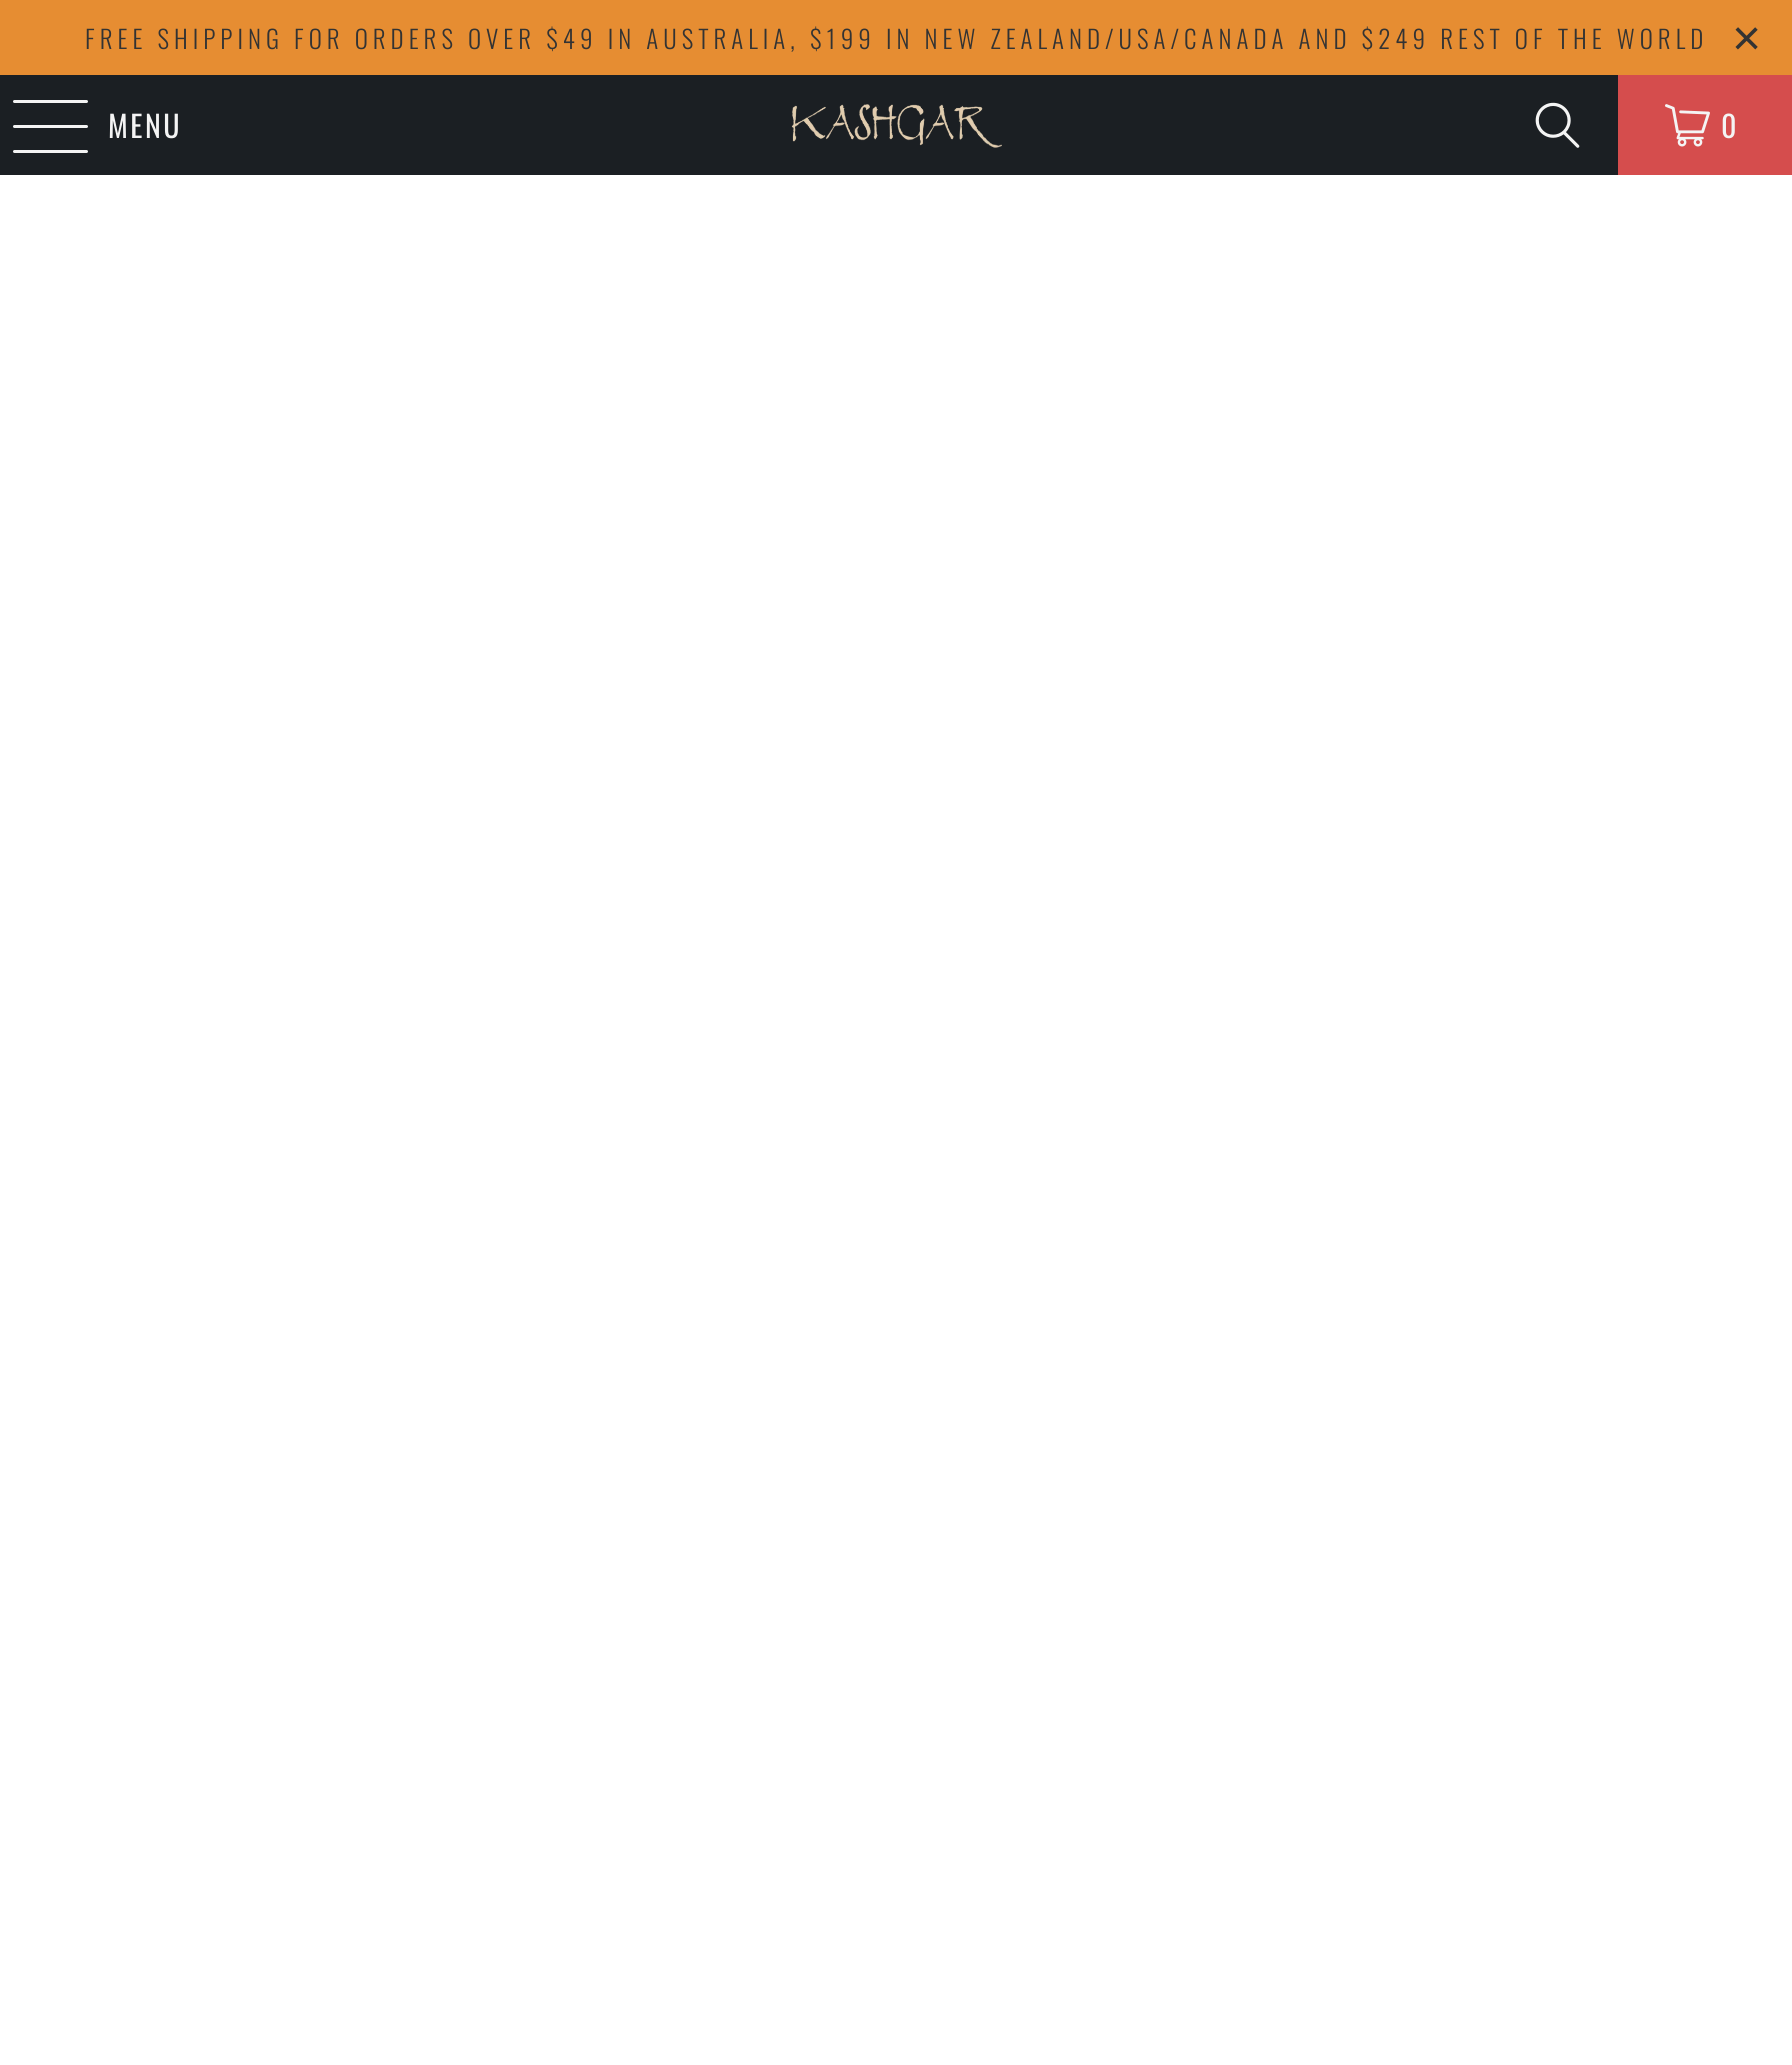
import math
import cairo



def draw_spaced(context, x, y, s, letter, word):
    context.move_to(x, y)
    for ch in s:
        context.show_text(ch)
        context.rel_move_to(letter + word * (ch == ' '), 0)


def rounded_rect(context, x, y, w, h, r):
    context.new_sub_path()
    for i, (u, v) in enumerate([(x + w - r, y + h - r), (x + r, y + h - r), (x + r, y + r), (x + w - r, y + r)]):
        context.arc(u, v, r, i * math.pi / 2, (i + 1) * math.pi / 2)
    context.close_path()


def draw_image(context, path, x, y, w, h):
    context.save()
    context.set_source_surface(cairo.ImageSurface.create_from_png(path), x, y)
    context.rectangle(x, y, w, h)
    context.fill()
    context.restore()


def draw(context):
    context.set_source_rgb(1, 1, 1)
    context.paint()
    context.set_source_rgb(230 / 255, 141 / 255, 50 / 255)
    context.rectangle(0, 0, 1792, 75)
    context.fill()
    context.set_source_rgb(27 / 255, 31 / 255, 35 / 255)
    context.rectangle(0, 75, 1618, 100)
    context.fill()
    context.set_source_rgb(244 / 255, 244 / 255, 244 / 255)
    rounded_rect(context, 13, 100, 75, 3, 1.5)
    context.fill()
    rounded_rect(context, 13, 125, 75, 3, 1.5)
    context.fill()
    rounded_rect(context, 13, 150, 75, 3, 1.5)
    context.fill()
    draw_image(context, "images/1.png", 791, 104, 211, 44)
    draw_image(context, "images/2.png", 1535, 102, 45, 46)
    context.set_source_rgb(213 / 255, 77 / 255, 77 / 255)
    context.rectangle(1618, 75, 174, 100)
    context.fill()
    draw_image(context, "images/3.png", 1665, 104, 45, 43)
    context.select_font_face("Oswald Light")
    context.set_font_size(25)
    context.set_source_rgb(51 / 255, 51 / 255, 51 / 255)
    draw_spaced(context, 85, 49, "FREE SHIPPING FOR ORDERS OVER $49 IN AUSTRALIA, $199 IN NEW ZEALAND/USA/CANADA AND $249 REST OF THE WORLD", 5, 0)
    context.select_font_face("Liberation Sans")
    context.set_font_size(50)
    draw_spaced(context, 1732, 55, "×", 5, 0)
    context.select_font_face("Oswald")
    context.set_font_size(30)
    context.set_source_rgb(244 / 255, 244 / 255, 244 / 255)
    draw_spaced(context, 108, 138, "MENU", 2.5, 0)
    draw_spaced(context, 1721, 138, "0", 2.5, 0)


surface = cairo.ImageSurface(cairo.Format.RGB24, 1792, 2065)
context = cairo.Context(surface)
options = cairo.FontOptions()
options.set_hint_metrics(cairo.HintMetrics.OFF)
options.set_hint_style(cairo.HintStyle.NONE)
context.set_font_options(options)
context.set_miter_limit(4)
draw(context)
surface.write_to_png("out.png")
